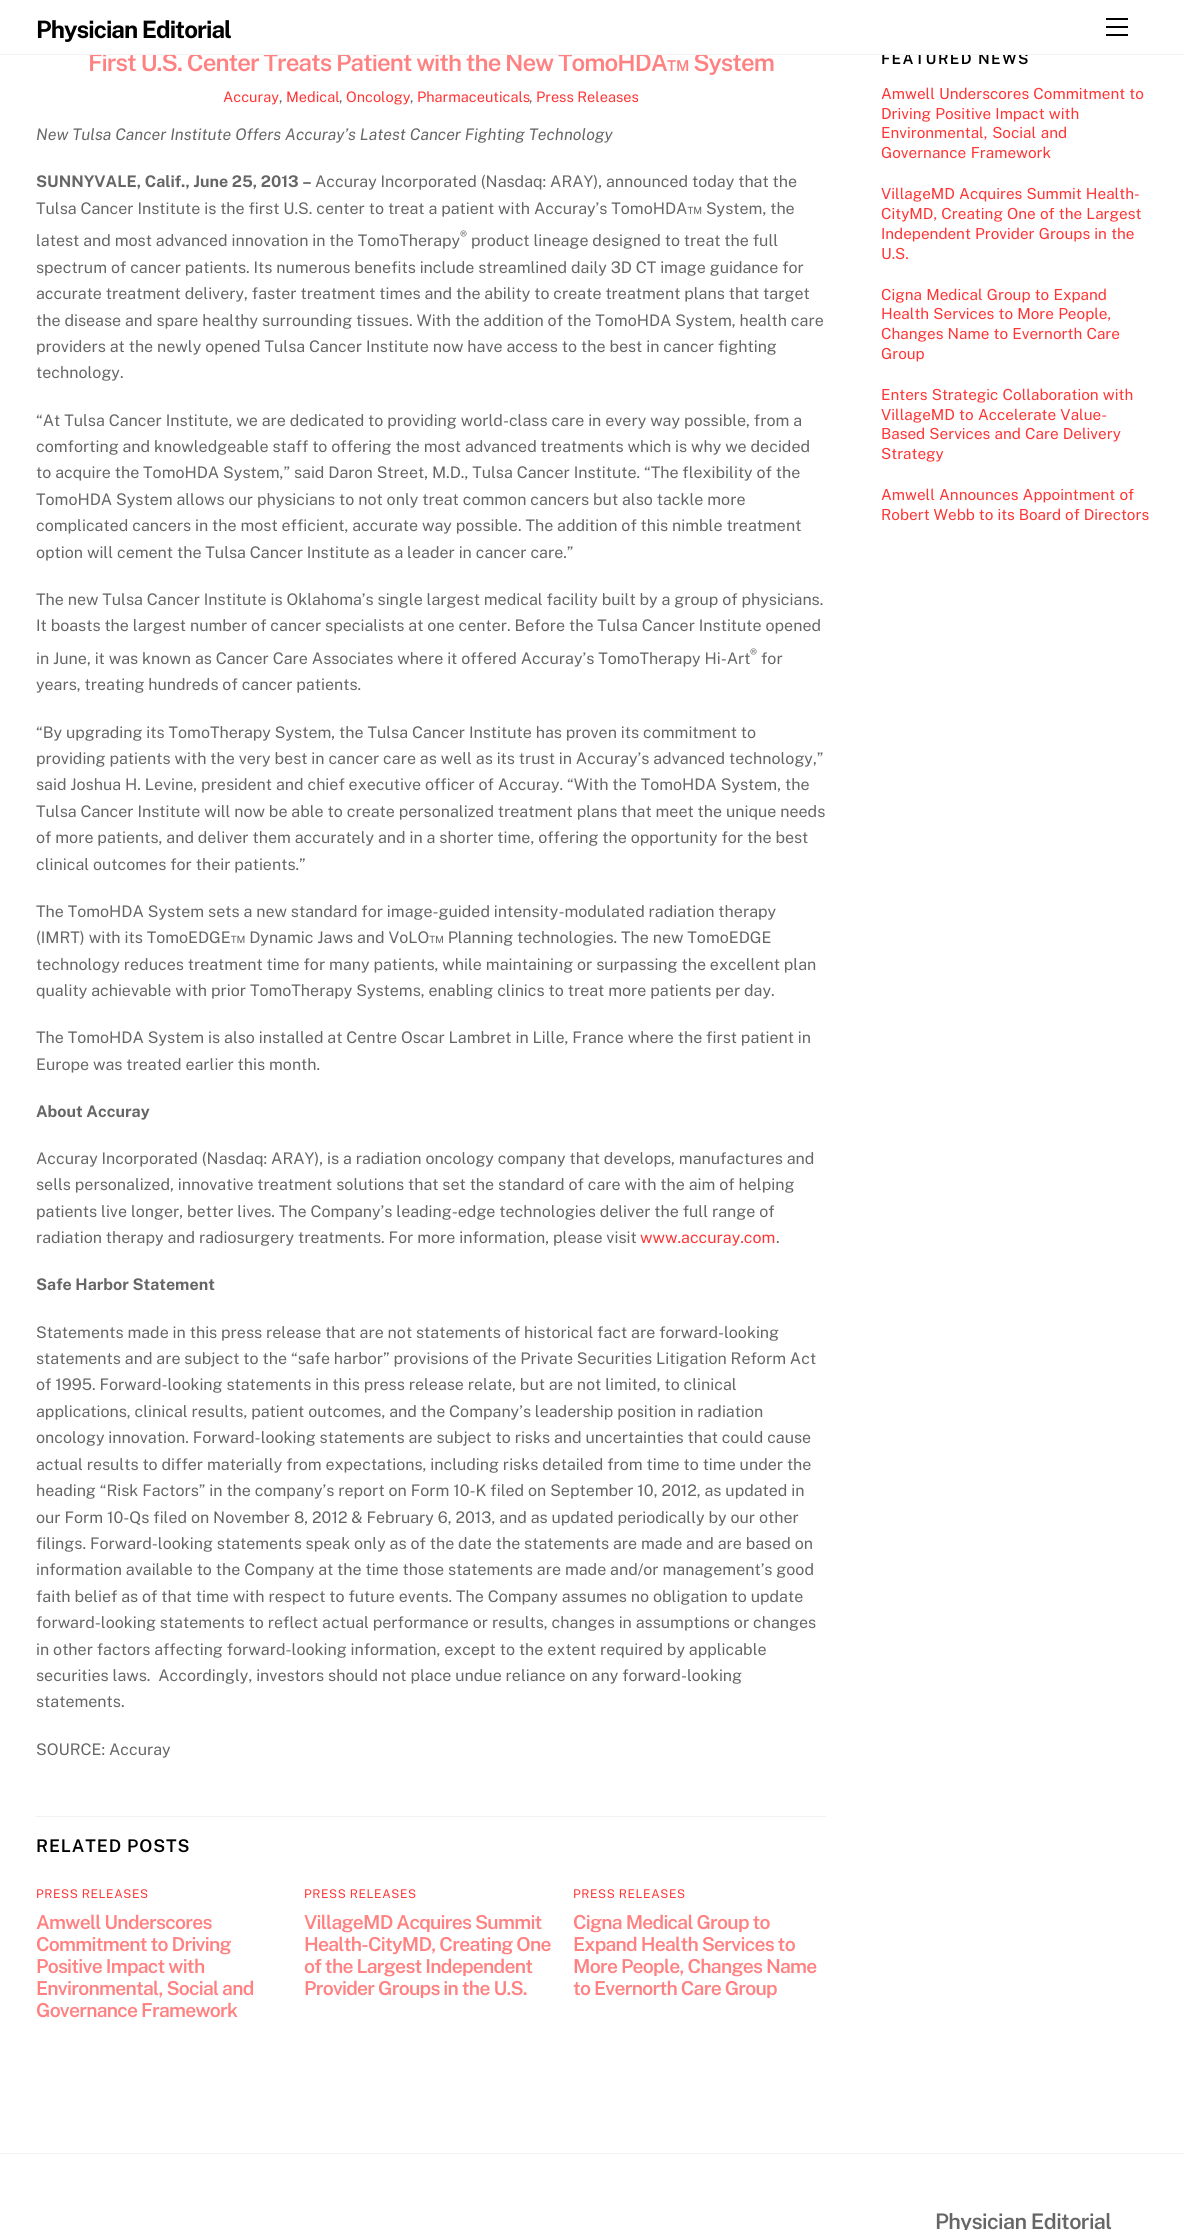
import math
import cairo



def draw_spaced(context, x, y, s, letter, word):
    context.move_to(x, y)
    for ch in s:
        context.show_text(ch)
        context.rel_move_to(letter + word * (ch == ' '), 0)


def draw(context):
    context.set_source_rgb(1, 1, 1)
    context.paint()
    context.set_source_rgb(0, 0, 0)
    context.rectangle(1106, 34, 22, 2)
    context.fill()
    context.rectangle(1106, 18, 22, 2)
    context.fill()
    context.rectangle(1106, 26, 22, 2)
    context.fill()
    context.set_source_rgb(242 / 255, 242 / 255, 242 / 255)
    context.rectangle(36, 1816, 790, 1)
    context.fill()
    context.rectangle(0, 2153, 1184, 1)
    context.fill()
    context.select_font_face("Public Sans", cairo.FontSlant.NORMAL, cairo.FontWeight.BOLD)
    context.set_font_size(24)
    context.set_source_rgb(0, 0, 0)
    draw_spaced(context, 36, 38, "Physician Editorial", -0.95, 0)
    context.select_font_face("Public Sans SemiBold")
    context.set_source_rgb(1, 129 / 255, 129 / 255)
    draw_spaced(context, 88, 71, "First U.S. Center Treats Patient with the New TomoHDA™ System", -0.95, 0)
    context.select_font_face("Public Sans")
    context.set_font_size(14.5)
    context.set_source_rgb(1, 52 / 255, 52 / 255)
    context.move_to(223, 102)
    context.show_text("Accuray")
    context.set_source_rgb(102 / 255, 102 / 255, 102 / 255)
    context.move_to(279, 102)
    context.show_text(",")
    context.set_source_rgb(1, 52 / 255, 52 / 255)
    context.move_to(286, 102)
    context.show_text("Medical")
    context.set_source_rgb(102 / 255, 102 / 255, 102 / 255)
    context.move_to(339, 102)
    context.show_text(",")
    context.set_source_rgb(1, 52 / 255, 52 / 255)
    context.move_to(346, 102)
    context.show_text("Oncology")
    context.set_source_rgb(102 / 255, 102 / 255, 102 / 255)
    context.move_to(410, 102)
    context.show_text(",")
    context.set_source_rgb(1, 52 / 255, 52 / 255)
    context.move_to(417, 102)
    context.show_text("Pharmaceuticals")
    context.set_source_rgb(102 / 255, 102 / 255, 102 / 255)
    context.move_to(529, 102)
    context.show_text(",")
    context.set_source_rgb(1, 52 / 255, 52 / 255)
    context.move_to(536, 102)
    context.show_text("Press Releases")
    context.select_font_face("Public Sans", cairo.FontSlant.ITALIC)
    context.set_font_size(16)
    context.set_source_rgb(102 / 255, 102 / 255, 102 / 255)
    context.move_to(36, 140)
    context.show_text("New Tulsa Cancer Institute Offers Accuray’s Latest Cancer Fighting Technology")
    context.select_font_face("Public Sans", cairo.FontSlant.NORMAL, cairo.FontWeight.BOLD)
    context.move_to(36, 187)
    context.show_text("SUNNYVALE, Calif., June 25, 2013 –")
    context.select_font_face("Public Sans")
    context.move_to(315, 187)
    context.show_text("Accuray Incorporated (Nasdaq: ARAY), announced today that the")
    context.move_to(36, 214)
    context.show_text("Tulsa Cancer Institute is the first U.S. center to treat a patient with Accuray’s TomoHDA™ System, the")
    context.move_to(36, 246)
    context.show_text("latest and most advanced innovation in the TomoTherapy")
    context.set_font_size(13)
    context.move_to(460, 240)
    context.show_text("®")
    context.set_font_size(16)
    context.move_to(471, 246)
    context.show_text("product lineage designed to treat the full")
    context.move_to(36, 273)
    context.show_text("spectrum of cancer patients. Its numerous benefits include streamlined daily 3D CT image guidance for")
    context.move_to(36, 299)
    context.show_text("accurate treatment delivery, faster treatment times and the ability to create treatment plans that target")
    context.move_to(36, 326)
    context.show_text("the disease and spare healthy surrounding tissues. With the addition of the TomoHDA System, health care")
    context.move_to(36, 352)
    context.show_text("providers at the newly opened Tulsa Cancer Institute now have access to the best in cancer fighting")
    context.move_to(36, 378)
    context.show_text("technology.")
    context.move_to(36, 426)
    context.show_text("“At Tulsa Cancer Institute, we are dedicated to providing world-class care in every way possible, from a")
    context.move_to(36, 452)
    context.show_text("comforting and knowledgeable staff to offering the most advanced treatments which is why we decided")
    context.move_to(36, 478)
    context.show_text("to acquire the TomoHDA System,” said Daron Street, M.D., Tulsa Cancer Institute. “The flexibility of the")
    context.move_to(36, 505)
    context.show_text("TomoHDA System allows our physicians to not only treat common cancers but also tackle more")
    context.move_to(36, 531)
    context.show_text("complicated cancers in the most efficient, accurate way possible. The addition of this nimble treatment")
    context.move_to(36, 558)
    context.show_text("option will cement the Tulsa Cancer Institute as a leader in cancer care.”")
    context.move_to(36, 605)
    context.show_text("The new Tulsa Cancer Institute is Oklahoma’s single largest medical facility built by a group of physicians.")
    context.move_to(36, 631)
    context.show_text("It boasts the largest number of cancer specialists at one center. Before the Tulsa Cancer Institute opened")
    context.move_to(36, 664)
    context.show_text("in June, it was known as Cancer Care Associates where it offered Accuray’s TomoTherapy Hi-Art")
    context.set_font_size(13)
    context.move_to(750, 658)
    context.show_text("®")
    context.set_font_size(16)
    context.move_to(761, 664)
    context.show_text("for")
    context.move_to(36, 690)
    context.show_text("years, treating hundreds of cancer patients.")
    context.move_to(36, 738)
    context.show_text("“By upgrading its TomoTherapy System, the Tulsa Cancer Institute has proven its commitment to")
    context.move_to(36, 764)
    context.show_text("providing patients with the very best in cancer care as well as its trust in Accuray’s advanced technology,”")
    context.move_to(36, 790)
    context.show_text("said Joshua H. Levine, president and chief executive officer of Accuray. “With the TomoHDA System, the")
    context.move_to(36, 817)
    context.show_text("Tulsa Cancer Institute will now be able to create personalized treatment plans that meet the unique needs")
    context.move_to(36, 843)
    context.show_text("of more patients, and deliver them accurately and in a shorter time, offering the opportunity for the best")
    context.move_to(36, 870)
    context.show_text("clinical outcomes for their patients.”")
    context.move_to(36, 917)
    context.show_text("The TomoHDA System sets a new standard for image-guided intensity-modulated radiation therapy")
    context.move_to(36, 943)
    context.show_text("(IMRT) with its TomoEDGE™ Dynamic Jaws and VoLO™ Planning technologies. The new TomoEDGE")
    context.move_to(36, 970)
    context.show_text("technology reduces treatment time for many patients, while maintaining or surpassing the excellent plan")
    context.move_to(36, 996)
    context.show_text("quality achievable with prior TomoTherapy Systems, enabling clinics to treat more patients per day.")
    context.move_to(36, 1043)
    context.show_text("The TomoHDA System is also installed at Centre Oscar Lambret in Lille, France where the first patient in")
    context.move_to(36, 1070)
    context.show_text("Europe was treated earlier this month.")
    context.select_font_face("Public Sans", cairo.FontSlant.NORMAL, cairo.FontWeight.BOLD)
    context.move_to(36, 1117)
    context.show_text("About Accuray")
    context.select_font_face("Public Sans")
    context.move_to(36, 1164)
    context.show_text("Accuray Incorporated (Nasdaq: ARAY), is a radiation oncology company that develops, manufactures and")
    context.move_to(36, 1190)
    context.show_text("sells personalized, innovative treatment solutions that set the standard of care with the aim of helping")
    context.move_to(36, 1217)
    context.show_text("patients live longer, better lives. The Company’s leading-edge technologies deliver the full range of")
    context.move_to(36, 1243)
    context.show_text("radiation therapy and radiosurgery treatments. For more information, please visit")
    context.set_source_rgb(1, 52 / 255, 52 / 255)
    context.move_to(640, 1243)
    context.show_text("www.accuray.com")
    context.set_source_rgb(102 / 255, 102 / 255, 102 / 255)
    context.move_to(776, 1243)
    context.show_text(".")
    context.select_font_face("Public Sans", cairo.FontSlant.NORMAL, cairo.FontWeight.BOLD)
    context.move_to(36, 1290)
    context.show_text("Safe Harbor Statement")
    context.select_font_face("Public Sans")
    context.move_to(36, 1338)
    context.show_text("Statements made in this press release that are not statements of historical fact are forward-looking")
    context.move_to(36, 1364)
    context.show_text("statements and are subject to the “safe harbor” provisions of the Private Securities Litigation Reform Act")
    context.move_to(36, 1390)
    context.show_text("of 1995. Forward-looking statements in this press release relate, but are not limited, to clinical")
    context.move_to(36, 1417)
    context.show_text("applications, clinical results, patient outcomes, and the Company’s leadership position in radiation")
    context.move_to(36, 1443)
    context.show_text("oncology innovation. Forward-looking statements are subject to risks and uncertainties that could cause")
    context.move_to(36, 1470)
    context.show_text("actual results to differ materially from expectations, including risks detailed from time to time under the")
    context.move_to(36, 1496)
    context.show_text("heading “Risk Factors” in the company’s report on Form 10-K filed on September 10, 2012, as updated in")
    context.move_to(36, 1523)
    context.show_text("our Form 10-Qs filed on November 8, 2012 & February 6, 2013, and as updated periodically by our other")
    context.move_to(36, 1549)
    context.show_text("filings. Forward-looking statements speak only as of the date the statements are made and are based on")
    context.move_to(36, 1575)
    context.show_text("information available to the Company at the time those statements are made and/or management’s good")
    context.move_to(36, 1602)
    context.show_text("faith belief as of that time with respect to future events. The Company assumes no obligation to update")
    context.move_to(36, 1628)
    context.show_text("forward-looking statements to reflect actual performance or results, changes in assumptions or changes")
    context.move_to(36, 1655)
    context.show_text("in other factors affecting forward-looking information, except to the extent required by applicable")
    context.move_to(36, 1681)
    context.show_text("securities laws.  Accordingly, investors should not place undue reliance on any forward-looking")
    context.move_to(36, 1707)
    context.show_text("statements.")
    context.move_to(36, 1755)
    context.show_text("SOURCE: Accuray")
    context.select_font_face("Public Sans SemiBold")
    context.set_font_size(17.5)
    context.set_source_rgb(0, 0, 0)
    draw_spaced(context, 36, 1852, "RELATED POSTS", 0.9, 0)
    context.select_font_face("Public Sans")
    context.set_font_size(12)
    context.set_source_rgb(1, 52 / 255, 52 / 255)
    draw_spaced(context, 36, 1898, "PRESS RELEASES", 0.6, 0)
    context.select_font_face("Public Sans SemiBold")
    context.set_font_size(19.25)
    context.set_source_rgb(1, 129 / 255, 129 / 255)
    draw_spaced(context, 36, 1929, "Amwell Underscores", -0.75, 0)
    draw_spaced(context, 36, 1951, "Commitment to Driving", -0.75, 0)
    draw_spaced(context, 36, 1973, "Positive Impact with", -0.75, 0)
    draw_spaced(context, 36, 1995, "Environmental, Social and", -0.75, 0)
    draw_spaced(context, 36, 2017, "Governance Framework", -0.75, 0)
    context.select_font_face("Public Sans")
    context.set_font_size(12)
    context.set_source_rgb(1, 52 / 255, 52 / 255)
    draw_spaced(context, 304, 1898, "PRESS RELEASES", 0.6, 0)
    context.select_font_face("Public Sans SemiBold")
    context.set_font_size(19.25)
    context.set_source_rgb(1, 129 / 255, 129 / 255)
    draw_spaced(context, 304, 1929, "VillageMD Acquires Summit", -0.75, 0)
    draw_spaced(context, 304, 1951, "Health-CityMD, Creating One", -0.75, 0)
    draw_spaced(context, 304, 1973, "of the Largest Independent", -0.75, 0)
    draw_spaced(context, 304, 1995, "Provider Groups in the U.S.", -0.75, 0)
    context.select_font_face("Public Sans")
    context.set_font_size(12)
    context.set_source_rgb(1, 52 / 255, 52 / 255)
    draw_spaced(context, 573, 1898, "PRESS RELEASES", 0.6, 0)
    context.select_font_face("Public Sans SemiBold")
    context.set_font_size(19.25)
    context.set_source_rgb(1, 129 / 255, 129 / 255)
    draw_spaced(context, 573, 1929, "Cigna Medical Group to", -0.75, 0)
    draw_spaced(context, 573, 1951, "Expand Health Services to", -0.75, 0)
    draw_spaced(context, 573, 1973, "More People, Changes Name", -0.75, 0)
    draw_spaced(context, 573, 1995, "to Evernorth Care Group", -0.75, 0)
    context.set_font_size(15.25)
    context.set_source_rgb(0, 0, 0)
    draw_spaced(context, 881, 64, "FEATURED NEWS", 1.4, 0)
    context.set_source_rgb(242 / 255, 242 / 255, 242 / 255)
    context.rectangle(0, 54, 1184, 1)
    context.fill()
    context.set_source_rgb(1, 1, 1)
    context.rectangle(90, 52, 937, 2)
    context.fill()
    context.select_font_face("Public Sans")
    context.set_source_rgb(1, 52 / 255, 52 / 255)
    draw_spaced(context, 881, 99, "Amwell Underscores Commitment to", 0, 0.5)
    draw_spaced(context, 881, 119, "Driving Positive Impact with", 0, 0.5)
    draw_spaced(context, 881, 138, "Environmental, Social and", 0, 1)
    draw_spaced(context, 881, 158, "Governance Framework", 0, 1)
    draw_spaced(context, 881, 199, "VillageMD Acquires Summit Health-", 0, 0.5)
    draw_spaced(context, 881, 219, "CityMD, Creating One of the Largest", 0, 0.5)
    draw_spaced(context, 881, 239, "Independent Provider Groups in the", 0, 0.5)
    context.move_to(881, 259)
    context.show_text("U.S.")
    draw_spaced(context, 881, 300, "Cigna Medical Group to Expand", 0, 0.5)
    draw_spaced(context, 881, 319, "Health Services to More People,", 0, 0.5)
    draw_spaced(context, 881, 339, "Changes Name to Evernorth Care", 0, 0.5)
    context.move_to(881, 359)
    context.show_text("Group")
    draw_spaced(context, 881, 400, "Enters Strategic Collaboration with", 0, 0.5)
    draw_spaced(context, 881, 420, "VillageMD to Accelerate Value-", 0, 0.5)
    draw_spaced(context, 881, 439, "Based Services and Care Delivery", 0, 0.5)
    context.move_to(881, 459)
    context.show_text("Strategy")
    draw_spaced(context, 881, 500, "Amwell Announces Appointment of", 0, 0.5)
    draw_spaced(context, 881, 520, "Robert Webb to its Board of Directors", 0, 0.25)
    context.select_font_face("Public Sans SemiBold")
    context.set_font_size(21.5)
    context.set_source_rgb(102 / 255, 102 / 255, 102 / 255)
    draw_spaced(context, 935, 2229, "Physician Editorial", -0.6, 0)


surface = cairo.ImageSurface(cairo.Format.RGB24, 1184, 2230)
context = cairo.Context(surface)
options = cairo.FontOptions()
options.set_hint_metrics(cairo.HintMetrics.OFF)
options.set_hint_style(cairo.HintStyle.NONE)
context.set_font_options(options)
context.set_miter_limit(4)
draw(context)
surface.write_to_png("out.png")
